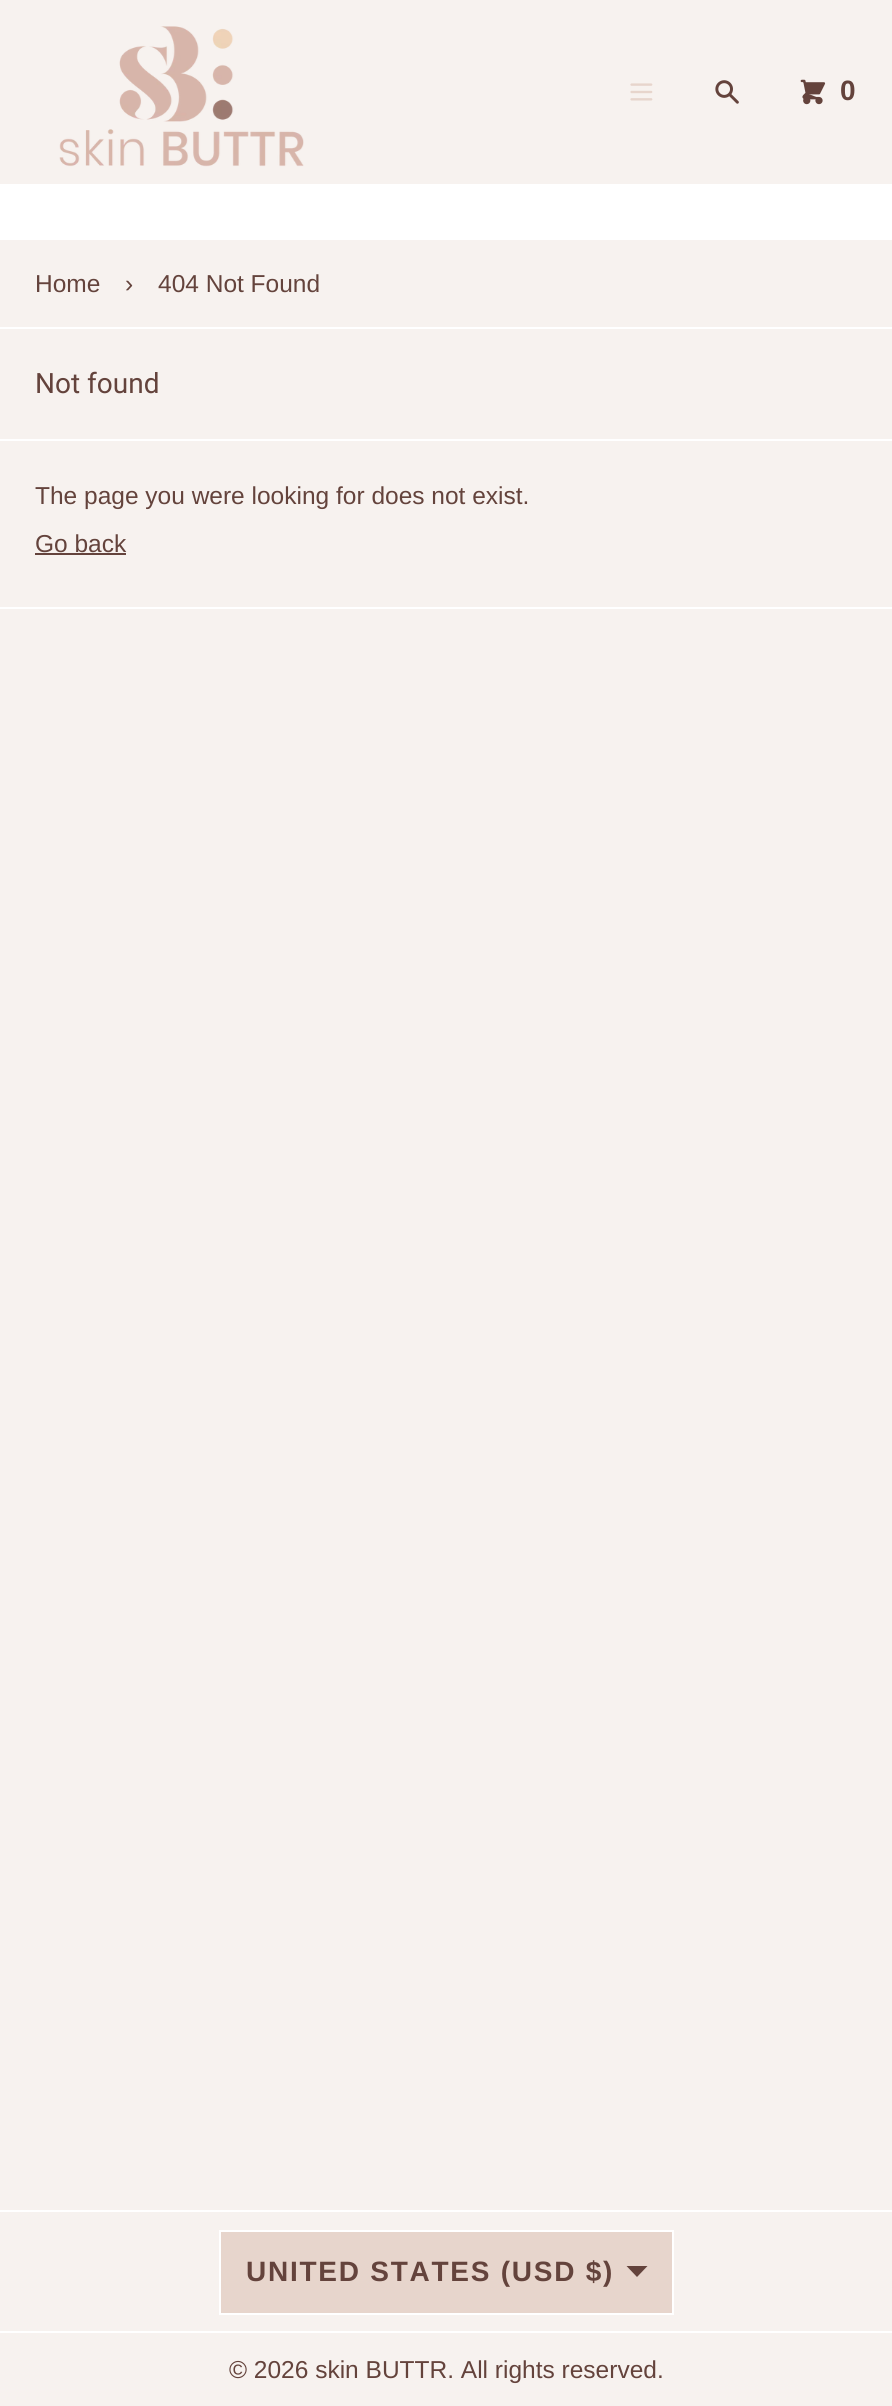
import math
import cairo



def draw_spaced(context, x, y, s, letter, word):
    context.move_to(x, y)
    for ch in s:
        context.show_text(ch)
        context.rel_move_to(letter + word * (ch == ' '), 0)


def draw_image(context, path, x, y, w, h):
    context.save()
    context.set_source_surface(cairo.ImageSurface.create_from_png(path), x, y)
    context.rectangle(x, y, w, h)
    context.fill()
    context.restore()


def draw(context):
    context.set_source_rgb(247 / 255, 242 / 255, 239 / 255)
    context.paint()
    draw_image(context, "images/1.png", 59, 26, 245, 141)
    draw_image(context, "images/2.png", 630, 83, 23, 18)
    draw_image(context, "images/3.png", 715, 80, 24, 24)
    draw_image(context, "images/4.png", 800, 79, 26, 26)
    context.set_source_rgb(1, 1, 1)
    context.rectangle(0, 184, 892, 56)
    context.fill()
    context.rectangle(0, 327, 892, 2)
    context.fill()
    context.rectangle(0, 607, 892, 2)
    context.fill()
    context.rectangle(0, 439, 892, 2)
    context.fill()
    context.set_source_rgb(100 / 255, 67 / 255, 60 / 255)
    context.rectangle(35, 553, 91, 2)
    context.fill()
    context.set_source_rgb(1, 1, 1)
    context.new_path()
    context.move_to(0, 2210)
    context.line_to(0, 2212)
    context.line_to(892, 2212)
    context.line_to(892, 2331)
    context.line_to(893, 2331)
    context.line_to(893, 2210)
    context.close_path()
    context.fill()
    context.set_source_rgb(231 / 255, 213 / 255, 204 / 255)
    context.rectangle(220, 2231, 453, 83)
    context.fill_preserve()
    context.set_source_rgb(1, 1, 1)
    context.stroke()
    context.set_source_rgb(100 / 255, 67 / 255, 60 / 255)
    context.new_path()
    context.move_to(626.5, 2266)
    context.line_to(647.5, 2266)
    context.line_to(637, 2277)
    context.close_path()
    context.fill()
    context.set_source_rgb(1, 1, 1)
    context.new_path()
    context.move_to(0, 2331)
    context.line_to(0, 2333)
    context.line_to(892, 2333)
    context.line_to(892, 2405)
    context.line_to(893, 2405)
    context.line_to(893, 2331)
    context.close_path()
    context.fill()
    context.select_font_face("Liberation Sans", cairo.FontSlant.NORMAL, cairo.FontWeight.BOLD)
    context.set_font_size(28)
    context.set_source_rgb(100 / 255, 67 / 255, 60 / 255)
    draw_spaced(context, 840, 100, "0", 1.75, 0)
    context.select_font_face("Liberation Sans")
    context.set_font_size(24.5)
    context.move_to(35, 292)
    context.show_text("Home")
    context.move_to(125, 292)
    context.show_text("›")
    context.move_to(158, 292)
    context.show_text("404 Not Found")
    context.select_font_face("Roboto")
    context.set_font_size(28)
    context.move_to(35, 393)
    context.show_text("Not found")
    context.select_font_face("Liberation Sans")
    context.set_font_size(24.5)
    context.move_to(35, 504)
    context.show_text("The page you were looking for does not exist.")
    context.move_to(35, 552)
    context.show_text("Go back")
    context.select_font_face("Liberation Sans", cairo.FontSlant.NORMAL, cairo.FontWeight.BOLD)
    context.set_font_size(28)
    draw_spaced(context, 246, 2281, "UNITED STATES (USD $)", 1.75, 0)
    context.select_font_face("Liberation Sans")
    context.set_font_size(24.5)
    context.move_to(229, 2378)
    context.show_text("© 2026 skin BUTTR. All rights reserved.")


surface = cairo.ImageSurface(cairo.Format.RGB24, 892, 2406)
context = cairo.Context(surface)
options = cairo.FontOptions()
options.set_hint_metrics(cairo.HintMetrics.OFF)
options.set_hint_style(cairo.HintStyle.NONE)
context.set_font_options(options)
context.set_miter_limit(4)
draw(context)
surface.write_to_png("out.png")
